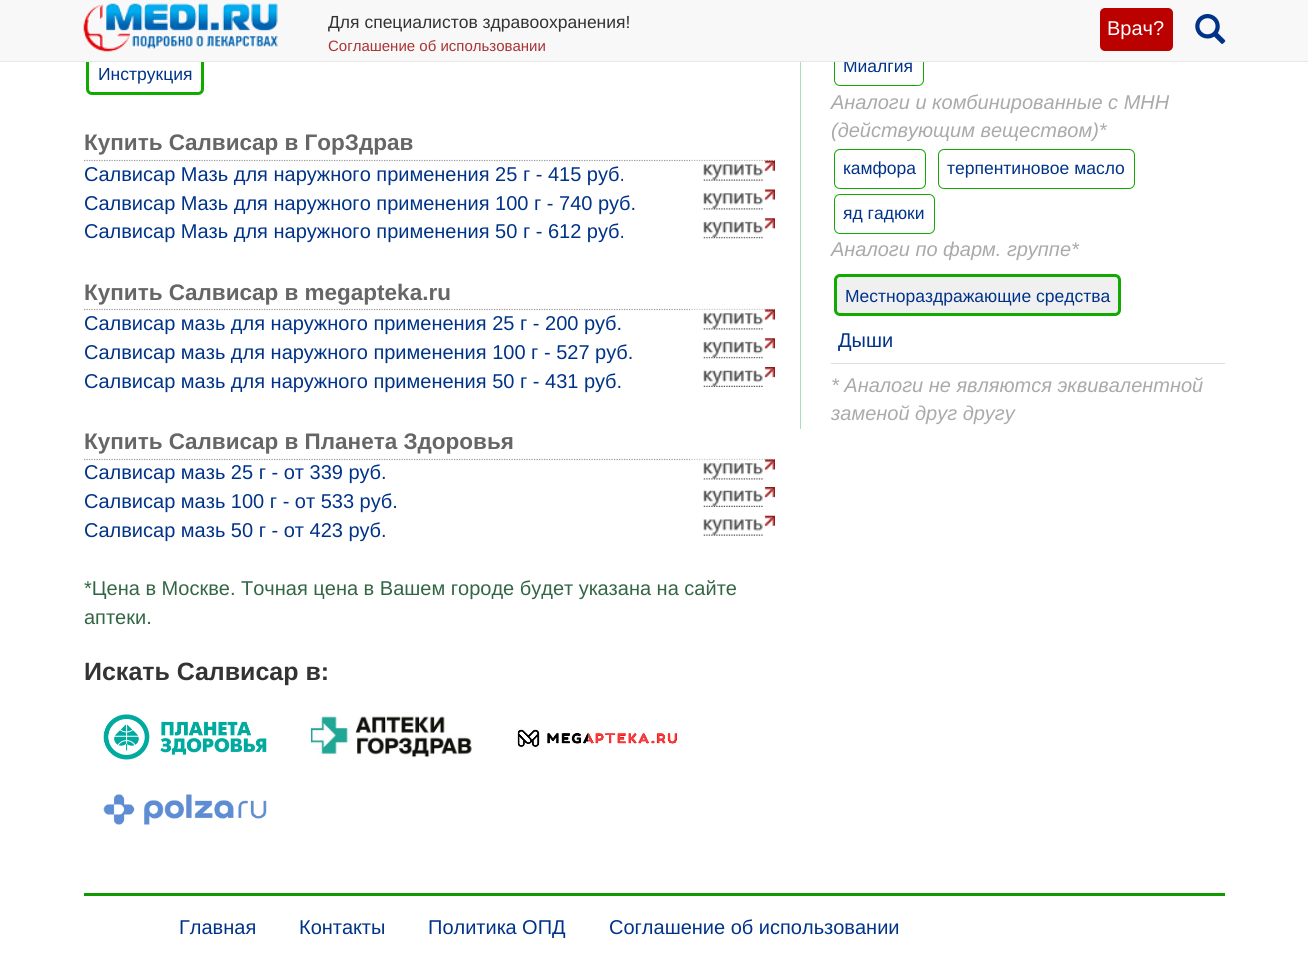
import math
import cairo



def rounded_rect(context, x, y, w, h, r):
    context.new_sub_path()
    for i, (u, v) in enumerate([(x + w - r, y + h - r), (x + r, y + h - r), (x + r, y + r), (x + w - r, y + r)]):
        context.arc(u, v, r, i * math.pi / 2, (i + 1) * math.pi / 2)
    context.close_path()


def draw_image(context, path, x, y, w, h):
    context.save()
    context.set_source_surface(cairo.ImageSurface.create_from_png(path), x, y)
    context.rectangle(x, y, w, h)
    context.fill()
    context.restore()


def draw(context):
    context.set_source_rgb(1, 1, 1)
    context.paint()
    rounded_rect(context, 87.5, 54.5, 115, 39, 4.5)
    context.set_source_rgb(17 / 255, 170 / 255, 0)
    context.set_line_width(3)
    context.stroke()
    context.new_path()
    context.move_to(84, 160.5)
    context.line_to(775, 160.5)
    context.set_source_rgb(153 / 255, 153 / 255, 153 / 255)
    context.set_line_width(1.2)
    context.set_dash([1.25, 1.25])
    context.stroke()
    draw_image(context, "images/3.png", 690, 160, 85, 21)
    draw_image(context, "images/4.png", 703, 189, 72, 21)
    draw_image(context, "images/5.png", 703, 218, 72, 21)
    context.new_path()
    context.move_to(84, 309.5)
    context.line_to(775, 309.5)
    context.stroke()
    draw_image(context, "images/6.png", 690, 309, 85, 21)
    draw_image(context, "images/5.png", 703, 338, 72, 21)
    draw_image(context, "images/7.png", 703, 367, 72, 20)
    context.new_path()
    context.move_to(84, 459.5)
    context.line_to(775, 459.5)
    context.stroke()
    draw_image(context, "images/6.png", 690, 459, 85, 21)
    draw_image(context, "images/7.png", 703, 487, 72, 20)
    draw_image(context, "images/8.png", 703, 515, 72, 21)
    draw_image(context, "images/9.png", 103, 714, 164, 46)
    draw_image(context, "images/10.png", 310, 716, 162, 42)
    draw_image(context, "images/11.png", 517, 729, 160, 19)
    draw_image(context, "images/12.png", 103, 794, 164, 31)
    context.set_source_rgb(170 / 255, 221 / 255, 187 / 255)
    context.rectangle(800, 62, 1, 367)
    context.fill()
    rounded_rect(context, 834.5, 46.5, 89, 39, 5.5)
    context.set_source_rgb(17 / 255, 170 / 255, 0)
    context.set_line_width(1)
    context.set_dash([])
    context.stroke()
    rounded_rect(context, 834.5, 149.5, 91, 39, 5.5)
    context.stroke()
    rounded_rect(context, 938.5, 149.5, 196, 39, 5.5)
    context.stroke()
    rounded_rect(context, 834.5, 194.5, 100, 39, 5.5)
    context.stroke()
    context.set_source_rgb(240 / 255, 240 / 255, 240 / 255)
    rounded_rect(context, 835.5, 275.5, 284, 39, 4.5)
    context.fill_preserve()
    context.set_source_rgb(17 / 255, 170 / 255, 0)
    context.set_line_width(3)
    context.stroke()
    context.set_source_rgb(221 / 255, 221 / 255, 221 / 255)
    context.rectangle(831, 363, 394, 1)
    context.fill()
    context.set_source_rgb(17 / 255, 153 / 255, 0)
    context.rectangle(84, 893, 1141, 3)
    context.fill()
    context.select_font_face("Liberation Sans")
    context.set_font_size(17.5)
    context.set_source_rgb(0, 51 / 255, 136 / 255)
    context.move_to(98, 80)
    context.show_text("Инструкция")
    context.select_font_face("Liberation Sans", cairo.FontSlant.NORMAL, cairo.FontWeight.BOLD)
    context.set_font_size(22.5)
    context.set_source_rgb(102 / 255, 102 / 255, 102 / 255)
    context.move_to(84, 150)
    context.show_text("Купить Салвисар в ГорЗдрав")
    context.select_font_face("Liberation Sans")
    context.set_font_size(20)
    context.set_source_rgb(0, 51 / 255, 136 / 255)
    context.move_to(84, 181)
    context.show_text("Салвисар Мазь для наружного применения 25 г - 415 руб.")
    context.move_to(84, 210)
    context.show_text("Салвисар Мазь для наружного применения 100 г - 740 руб.")
    context.move_to(84, 238)
    context.show_text("Салвисар Мазь для наружного применения 50 г - 612 руб.")
    context.select_font_face("Liberation Sans", cairo.FontSlant.NORMAL, cairo.FontWeight.BOLD)
    context.set_font_size(22.5)
    context.set_source_rgb(102 / 255, 102 / 255, 102 / 255)
    context.move_to(84, 300)
    context.show_text("Купить Салвисар в megapteka.ru")
    context.select_font_face("Liberation Sans")
    context.set_font_size(20)
    context.set_source_rgb(0, 51 / 255, 136 / 255)
    context.move_to(84, 330)
    context.show_text("Салвисар мазь для наружного применения 25 г - 200 руб.")
    context.move_to(84, 359)
    context.show_text("Салвисар мазь для наружного применения 100 г - 527 руб.")
    context.move_to(84, 388)
    context.show_text("Салвисар мазь для наружного применения 50 г - 431 руб.")
    context.select_font_face("Liberation Sans", cairo.FontSlant.NORMAL, cairo.FontWeight.BOLD)
    context.set_font_size(22.5)
    context.set_source_rgb(102 / 255, 102 / 255, 102 / 255)
    context.move_to(84, 449)
    context.show_text("Купить Салвисар в Планета Здоровья")
    context.select_font_face("Liberation Sans")
    context.set_font_size(20)
    context.set_source_rgb(0, 51 / 255, 136 / 255)
    context.move_to(84, 479)
    context.show_text("Салвисар мазь 25 г - от 339 руб.")
    context.move_to(84, 508)
    context.show_text("Салвисар мазь 100 г - от 533 руб.")
    context.move_to(84, 537)
    context.show_text("Салвисар мазь 50 г - от 423 руб.")
    context.set_source_rgb(51 / 255, 102 / 255, 68 / 255)
    context.move_to(84, 595)
    context.show_text("*Цена в Москве. Точная цена в Вашем городе будет указана на сайте")
    context.move_to(84, 624)
    context.show_text("аптеки.")
    context.select_font_face("Liberation Sans", cairo.FontSlant.NORMAL, cairo.FontWeight.BOLD)
    context.set_font_size(25)
    context.set_source_rgb(51 / 255, 51 / 255, 51 / 255)
    context.move_to(84, 680)
    context.show_text("Искать Салвисар в:")
    context.select_font_face("Liberation Sans")
    context.set_font_size(17.5)
    context.set_source_rgb(0, 51 / 255, 136 / 255)
    context.move_to(843, 72)
    context.show_text("Миалгия")
    context.set_source_rgb(248 / 255, 248 / 255, 248 / 255)
    context.rectangle(0, 0, 1308, 61)
    context.fill()
    draw_image(context, "images/2.png", 1195, 14, 31, 30)
    context.set_font_size(15)
    context.set_source_rgb(170 / 255, 51 / 255, 51 / 255)
    context.move_to(328, 51)
    context.show_text("Соглашение об использовании")
    context.set_font_size(17.5)
    context.set_source_rgb(51 / 255, 51 / 255, 51 / 255)
    context.move_to(328, 28)
    context.show_text("Для специалистов здравоохранения!")
    draw_image(context, "images/1.png", 83, 3, 195, 49)
    context.set_source_rgb(187 / 255, 0, 0)
    rounded_rect(context, 1100, 8, 73, 43, 5)
    context.fill()
    context.set_font_size(20)
    context.set_source_rgb(1, 1, 1)
    context.move_to(1107, 35)
    context.show_text("Врач?")
    context.set_source_rgb(231 / 255, 231 / 255, 231 / 255)
    context.rectangle(0, 61, 1308, 1)
    context.fill()
    context.select_font_face("Liberation Sans", cairo.FontSlant.ITALIC)
    context.set_source_rgb(170 / 255, 170 / 255, 170 / 255)
    context.move_to(831, 109)
    context.show_text("Аналоги и комбинированные с МНН")
    context.move_to(831, 137)
    context.show_text("(действующим веществом)*")
    context.select_font_face("Liberation Sans")
    context.set_font_size(17.5)
    context.set_source_rgb(0, 51 / 255, 136 / 255)
    context.move_to(843, 174)
    context.show_text("камфора")
    context.move_to(947, 174)
    context.show_text("терпентиновое масло")
    context.move_to(843, 219)
    context.show_text("яд гадюки")
    context.select_font_face("Liberation Sans", cairo.FontSlant.ITALIC)
    context.set_font_size(20)
    context.set_source_rgb(170 / 255, 170 / 255, 170 / 255)
    context.move_to(831, 256)
    context.show_text("Аналоги по фарм. группе*")
    context.select_font_face("Liberation Sans")
    context.set_font_size(17.5)
    context.set_source_rgb(0, 51 / 255, 136 / 255)
    context.move_to(845, 302)
    context.show_text("Местнораздражающие средства")
    context.set_font_size(20)
    context.move_to(838, 347)
    context.show_text("Дыши")
    context.select_font_face("Liberation Sans", cairo.FontSlant.ITALIC)
    context.set_source_rgb(170 / 255, 170 / 255, 170 / 255)
    context.move_to(831, 392)
    context.show_text("* Аналоги не являются эквивалентной")
    context.move_to(831, 420)
    context.show_text("заменой друг другу")
    context.select_font_face("Liberation Sans")
    context.set_source_rgb(0, 51 / 255, 136 / 255)
    context.move_to(179, 934)
    context.show_text("Главная")
    context.move_to(299, 934)
    context.show_text("Контакты")
    context.move_to(428, 934)
    context.show_text("Политика ОПД")
    context.move_to(609, 934)
    context.show_text("Соглашение об использовании")


surface = cairo.ImageSurface(cairo.Format.RGB24, 1308, 970)
context = cairo.Context(surface)
options = cairo.FontOptions()
options.set_hint_metrics(cairo.HintMetrics.OFF)
options.set_hint_style(cairo.HintStyle.NONE)
context.set_font_options(options)
context.set_miter_limit(4)
draw(context)
surface.write_to_png("out.png")
